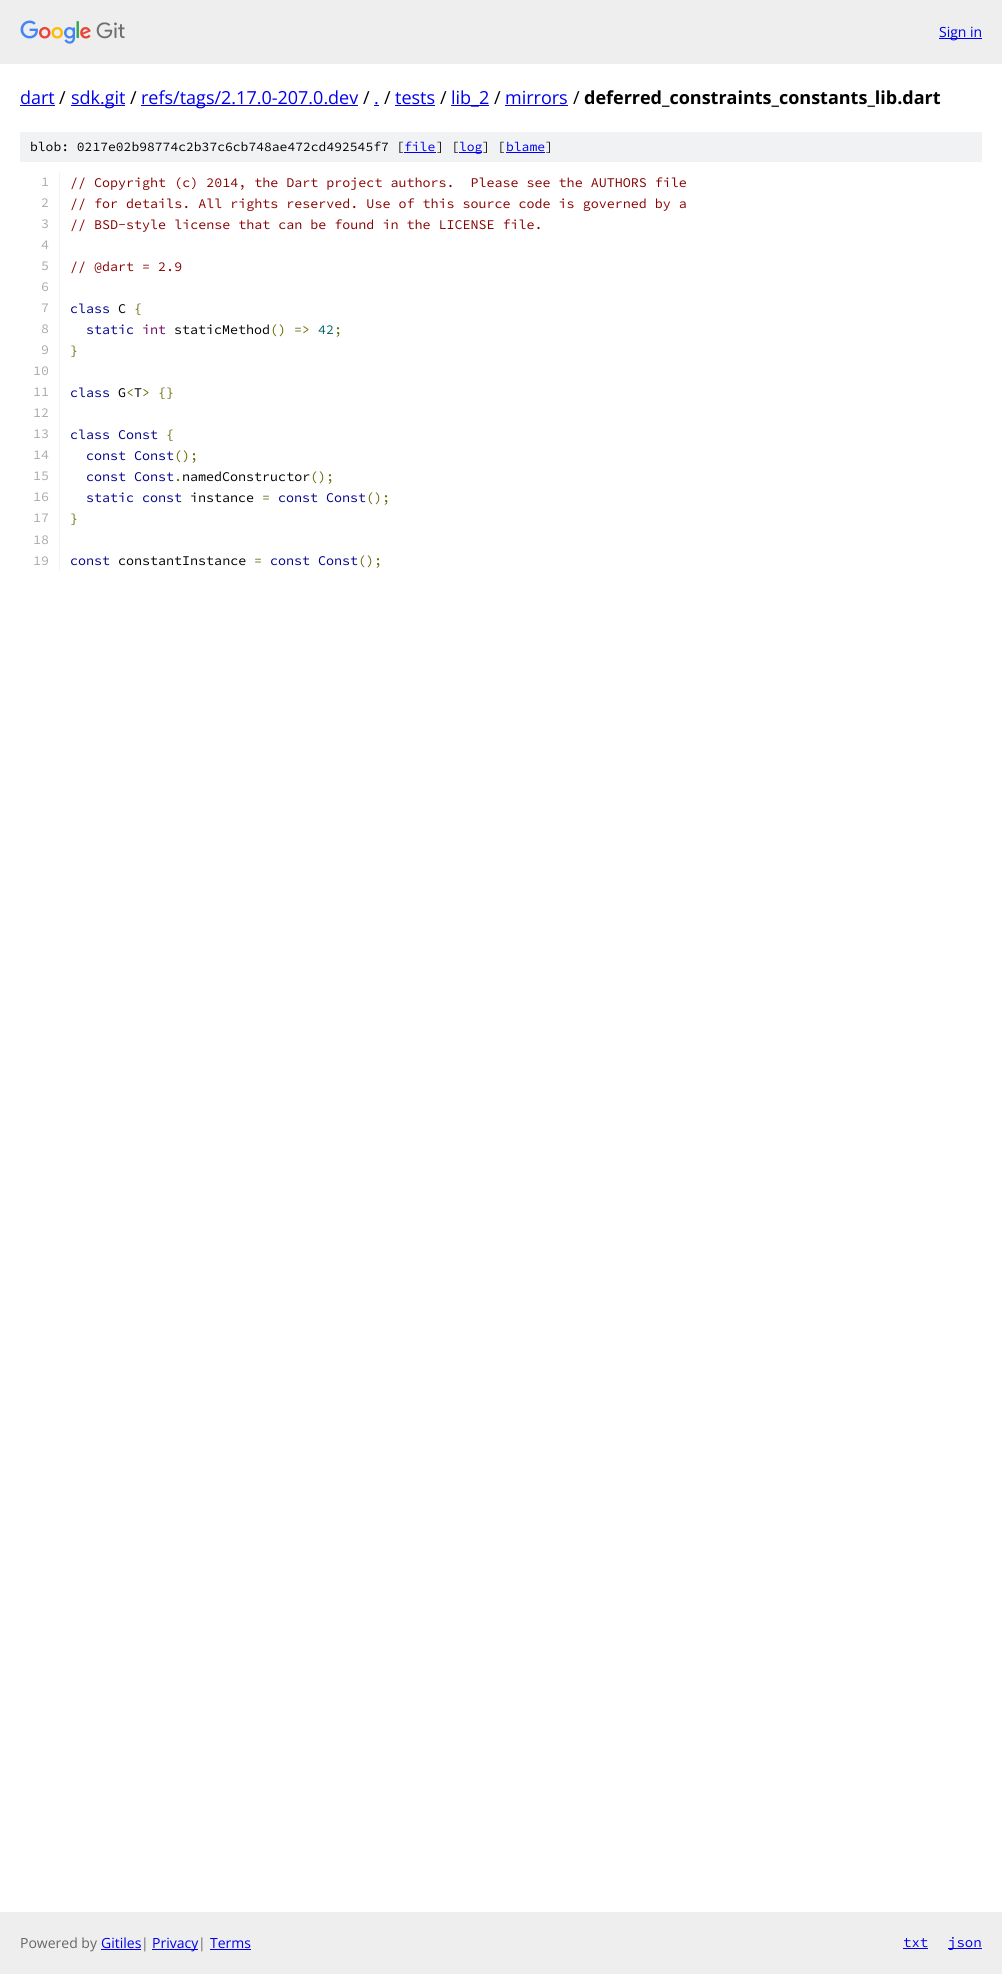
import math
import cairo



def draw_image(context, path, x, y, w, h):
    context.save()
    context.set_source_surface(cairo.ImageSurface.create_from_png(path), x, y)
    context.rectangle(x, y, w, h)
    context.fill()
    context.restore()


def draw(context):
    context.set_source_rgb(1, 1, 1)
    context.paint()
    context.set_source_rgb(238 / 255, 238 / 255, 238 / 255)
    context.rectangle(0, 0, 1002, 64)
    context.fill()
    draw_image(context, "images/1.png", 20, 20, 105, 24)
    context.set_source_rgb(0, 0, 238 / 255)
    context.rectangle(939, 38, 43, 1)
    context.fill()
    context.rectangle(20, 105, 35, 1)
    context.fill()
    context.rectangle(71, 105, 54, 1)
    context.fill()
    context.rectangle(141, 105, 217, 1)
    context.fill()
    context.rectangle(374, 105, 5, 1)
    context.fill()
    context.rectangle(395, 105, 40, 1)
    context.fill()
    context.rectangle(451, 105, 38, 1)
    context.fill()
    context.rectangle(505, 105, 63, 1)
    context.fill()
    context.set_source_rgb(241 / 255, 242 / 255, 243 / 255)
    context.rectangle(20, 132, 962, 30)
    context.fill()
    context.set_source_rgb(0, 0, 238 / 255)
    context.rectangle(404, 152, 32, 1)
    context.fill()
    context.rectangle(459, 152, 23, 1)
    context.fill()
    context.rectangle(506, 152, 39, 1)
    context.fill()
    context.set_source_rgb(241 / 255, 242 / 255, 243 / 255)
    context.rectangle(59, 172, 1, 357)
    context.fill()
    context.rectangle(59, 530, 1, 20)
    context.fill()
    context.rectangle(59, 551, 1, 20)
    context.fill()
    context.set_source_rgb(238 / 255, 238 / 255, 238 / 255)
    context.rectangle(0, 1912, 1002, 62)
    context.fill()
    context.set_source_rgb(0, 0, 238 / 255)
    context.rectangle(101, 1949, 40, 1)
    context.fill()
    context.rectangle(152, 1949, 46, 1)
    context.fill()
    context.rectangle(210, 1949, 41, 1)
    context.fill()
    context.rectangle(903, 1948, 25, 1)
    context.fill()
    context.rectangle(948, 1948, 34, 1)
    context.fill()
    context.select_font_face("Open Sans")
    context.set_font_size(14)
    context.move_to(939, 37)
    context.show_text("Sign in")
    context.set_font_size(18)
    context.move_to(20, 104)
    context.show_text("dart")
    context.set_source_rgb(0, 0, 0)
    context.move_to(59, 104)
    context.show_text("/")
    context.set_source_rgb(0, 0, 238 / 255)
    context.move_to(71, 104)
    context.show_text("sdk.git")
    context.set_source_rgb(0, 0, 0)
    context.move_to(130, 104)
    context.show_text("/")
    context.set_source_rgb(0, 0, 238 / 255)
    context.move_to(141, 104)
    context.show_text("refs/tags/2.17.0-207.0.dev")
    context.set_source_rgb(0, 0, 0)
    context.move_to(363, 104)
    context.show_text("/")
    context.set_source_rgb(0, 0, 238 / 255)
    context.move_to(374, 104)
    context.show_text(".")
    context.set_source_rgb(0, 0, 0)
    context.move_to(384, 104)
    context.show_text("/")
    context.set_source_rgb(0, 0, 238 / 255)
    context.move_to(395, 104)
    context.show_text("tests")
    context.set_source_rgb(0, 0, 0)
    context.move_to(440, 104)
    context.show_text("/")
    context.set_source_rgb(0, 0, 238 / 255)
    context.move_to(451, 104)
    context.show_text("lib_2")
    context.set_source_rgb(0, 0, 0)
    context.move_to(494, 104)
    context.show_text("/")
    context.set_source_rgb(0, 0, 238 / 255)
    context.move_to(505, 104)
    context.show_text("mirrors")
    context.set_source_rgb(0, 0, 0)
    context.move_to(573, 104)
    context.show_text("/")
    context.select_font_face("Open Sans", cairo.FontSlant.NORMAL, cairo.FontWeight.BOLD)
    context.move_to(584, 104)
    context.show_text("deferred_constraints_constants_lib.dart")
    context.select_font_face("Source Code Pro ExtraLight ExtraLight")
    context.set_font_size(13)
    context.move_to(30, 151)
    context.show_text("blob: 0217e02b98774c2b37c6cb748ae472cd492545f7 [")
    context.set_source_rgb(0, 0, 238 / 255)
    context.move_to(404, 151)
    context.show_text("file")
    context.set_source_rgb(0, 0, 0)
    context.move_to(436, 151)
    context.show_text("] [")
    context.set_source_rgb(0, 0, 238 / 255)
    context.move_to(459, 151)
    context.show_text("log")
    context.set_source_rgb(0, 0, 0)
    context.move_to(482, 151)
    context.show_text("] [")
    context.set_source_rgb(0, 0, 238 / 255)
    context.move_to(506, 151)
    context.show_text("blame")
    context.set_source_rgb(0, 0, 0)
    context.move_to(545, 151)
    context.show_text("]")
    context.set_font_size(13.35)
    context.set_source_rgb(170 / 255, 170 / 255, 170 / 255)
    context.move_to(41, 186)
    context.show_text("1")
    context.set_source_rgb(136 / 255, 0, 0)
    context.move_to(70, 187)
    context.show_text("// Copyright (c) 2014, the Dart project authors.  Please see the AUTHORS file")
    context.set_source_rgb(170 / 255, 170 / 255, 170 / 255)
    context.move_to(41, 207)
    context.show_text("2")
    context.set_source_rgb(136 / 255, 0, 0)
    context.move_to(70, 208)
    context.show_text("// for details. All rights reserved. Use of this source code is governed by a")
    context.set_source_rgb(170 / 255, 170 / 255, 170 / 255)
    context.move_to(41, 228)
    context.show_text("3")
    context.set_source_rgb(136 / 255, 0, 0)
    context.move_to(70, 229)
    context.show_text("// BSD-style license that can be found in the LICENSE file.")
    context.set_source_rgb(170 / 255, 170 / 255, 170 / 255)
    context.move_to(41, 249)
    context.show_text("4")
    context.move_to(41, 270)
    context.show_text("5")
    context.set_source_rgb(136 / 255, 0, 0)
    context.move_to(70, 271)
    context.show_text("// @dart = 2.9")
    context.set_source_rgb(170 / 255, 170 / 255, 170 / 255)
    context.move_to(41, 291)
    context.show_text("6")
    context.move_to(41, 312)
    context.show_text("7")
    context.set_source_rgb(0, 0, 136 / 255)
    context.move_to(70, 313)
    context.show_text("class")
    context.set_source_rgb(0, 0, 0)
    context.move_to(118, 313)
    context.show_text("C")
    context.set_source_rgb(102 / 255, 102 / 255, 0)
    context.move_to(134, 313)
    context.show_text("{")
    context.set_source_rgb(170 / 255, 170 / 255, 170 / 255)
    context.move_to(41, 333)
    context.show_text("8")
    context.set_source_rgb(0, 0, 136 / 255)
    context.move_to(86, 334)
    context.show_text("static")
    context.set_source_rgb(102 / 255, 0, 102 / 255)
    context.move_to(142, 334)
    context.show_text("int")
    context.set_source_rgb(0, 0, 0)
    context.move_to(174, 334)
    context.show_text("staticMethod")
    context.set_source_rgb(102 / 255, 102 / 255, 0)
    context.move_to(270, 334)
    context.show_text("() =>")
    context.set_source_rgb(0, 102 / 255, 102 / 255)
    context.move_to(318, 334)
    context.show_text("42")
    context.set_source_rgb(102 / 255, 102 / 255, 0)
    context.move_to(334, 334)
    context.show_text(";")
    context.set_source_rgb(170 / 255, 170 / 255, 170 / 255)
    context.move_to(41, 354)
    context.show_text("9")
    context.set_source_rgb(102 / 255, 102 / 255, 0)
    context.move_to(70, 355)
    context.show_text("}")
    context.set_source_rgb(170 / 255, 170 / 255, 170 / 255)
    context.move_to(33, 375)
    context.show_text("10")
    context.move_to(33, 396)
    context.show_text("11")
    context.set_source_rgb(0, 0, 136 / 255)
    context.move_to(70, 397)
    context.show_text("class")
    context.set_source_rgb(0, 0, 0)
    context.move_to(118, 397)
    context.show_text("G T")
    context.set_source_rgb(102 / 255, 102 / 255, 0)
    context.move_to(126, 397)
    context.show_text("< > {}")
    context.set_source_rgb(170 / 255, 170 / 255, 170 / 255)
    context.move_to(33, 417)
    context.show_text("12")
    context.move_to(33, 438)
    context.show_text("13")
    context.set_source_rgb(0, 0, 136 / 255)
    context.move_to(70, 439)
    context.show_text("class Const")
    context.set_source_rgb(102 / 255, 102 / 255, 0)
    context.move_to(166, 439)
    context.show_text("{")
    context.set_source_rgb(170 / 255, 170 / 255, 170 / 255)
    context.move_to(33, 459)
    context.show_text("14")
    context.set_source_rgb(0, 0, 136 / 255)
    context.move_to(86, 460)
    context.show_text("const Const")
    context.set_source_rgb(102 / 255, 102 / 255, 0)
    context.move_to(174, 460)
    context.show_text("();")
    context.set_source_rgb(170 / 255, 170 / 255, 170 / 255)
    context.move_to(33, 480)
    context.show_text("15")
    context.set_source_rgb(0, 0, 136 / 255)
    context.move_to(86, 481)
    context.show_text("const Const")
    context.set_source_rgb(102 / 255, 102 / 255, 0)
    context.move_to(174, 481)
    context.show_text(".")
    context.set_source_rgb(0, 0, 0)
    context.move_to(182, 481)
    context.show_text("namedConstructor")
    context.set_source_rgb(102 / 255, 102 / 255, 0)
    context.move_to(310, 481)
    context.show_text("();")
    context.set_source_rgb(170 / 255, 170 / 255, 170 / 255)
    context.move_to(33, 501)
    context.show_text("16")
    context.set_source_rgb(0, 0, 136 / 255)
    context.move_to(86, 502)
    context.show_text("static const")
    context.set_source_rgb(0, 0, 0)
    context.move_to(190, 502)
    context.show_text("instance")
    context.set_source_rgb(102 / 255, 102 / 255, 0)
    context.move_to(262, 502)
    context.show_text("=")
    context.set_source_rgb(0, 0, 136 / 255)
    context.move_to(278, 502)
    context.show_text("const Const")
    context.set_source_rgb(102 / 255, 102 / 255, 0)
    context.move_to(366, 502)
    context.show_text("();")
    context.set_source_rgb(170 / 255, 170 / 255, 170 / 255)
    context.move_to(33, 522)
    context.show_text("17")
    context.set_source_rgb(102 / 255, 102 / 255, 0)
    context.move_to(70, 523)
    context.show_text("}")
    context.set_source_rgb(170 / 255, 170 / 255, 170 / 255)
    context.move_to(33, 544)
    context.show_text("18")
    context.move_to(33, 565)
    context.show_text("19")
    context.set_source_rgb(0, 0, 136 / 255)
    context.move_to(70, 565)
    context.show_text("const")
    context.set_source_rgb(0, 0, 0)
    context.move_to(118, 565)
    context.show_text("constantInstance")
    context.set_source_rgb(102 / 255, 102 / 255, 0)
    context.move_to(254, 565)
    context.show_text("=")
    context.set_source_rgb(0, 0, 136 / 255)
    context.move_to(270, 565)
    context.show_text("const Const")
    context.set_source_rgb(102 / 255, 102 / 255, 0)
    context.move_to(358, 565)
    context.show_text("();")
    context.select_font_face("Open Sans")
    context.set_font_size(14)
    context.set_source_rgb(102 / 255, 102 / 255, 102 / 255)
    context.move_to(20, 1948)
    context.show_text("Powered by")
    context.set_source_rgb(0, 0, 238 / 255)
    context.move_to(101, 1948)
    context.show_text("Gitiles")
    context.set_source_rgb(102 / 255, 102 / 255, 102 / 255)
    context.move_to(141, 1948)
    context.show_text("|")
    context.set_source_rgb(0, 0, 238 / 255)
    context.move_to(152, 1948)
    context.show_text("Privacy")
    context.set_source_rgb(102 / 255, 102 / 255, 102 / 255)
    context.move_to(198, 1948)
    context.show_text("|")
    context.set_source_rgb(0, 0, 238 / 255)
    context.move_to(210, 1948)
    context.show_text("Terms")
    context.select_font_face("Source Code Pro ExtraLight ExtraLight")
    context.move_to(903, 1947)
    context.show_text("txt")
    context.move_to(948, 1947)
    context.show_text("json")


surface = cairo.ImageSurface(cairo.Format.RGB24, 1002, 1974)
context = cairo.Context(surface)
options = cairo.FontOptions()
options.set_hint_metrics(cairo.HintMetrics.OFF)
options.set_hint_style(cairo.HintStyle.NONE)
context.set_font_options(options)
context.set_miter_limit(4)
draw(context)
surface.write_to_png("out.png")
